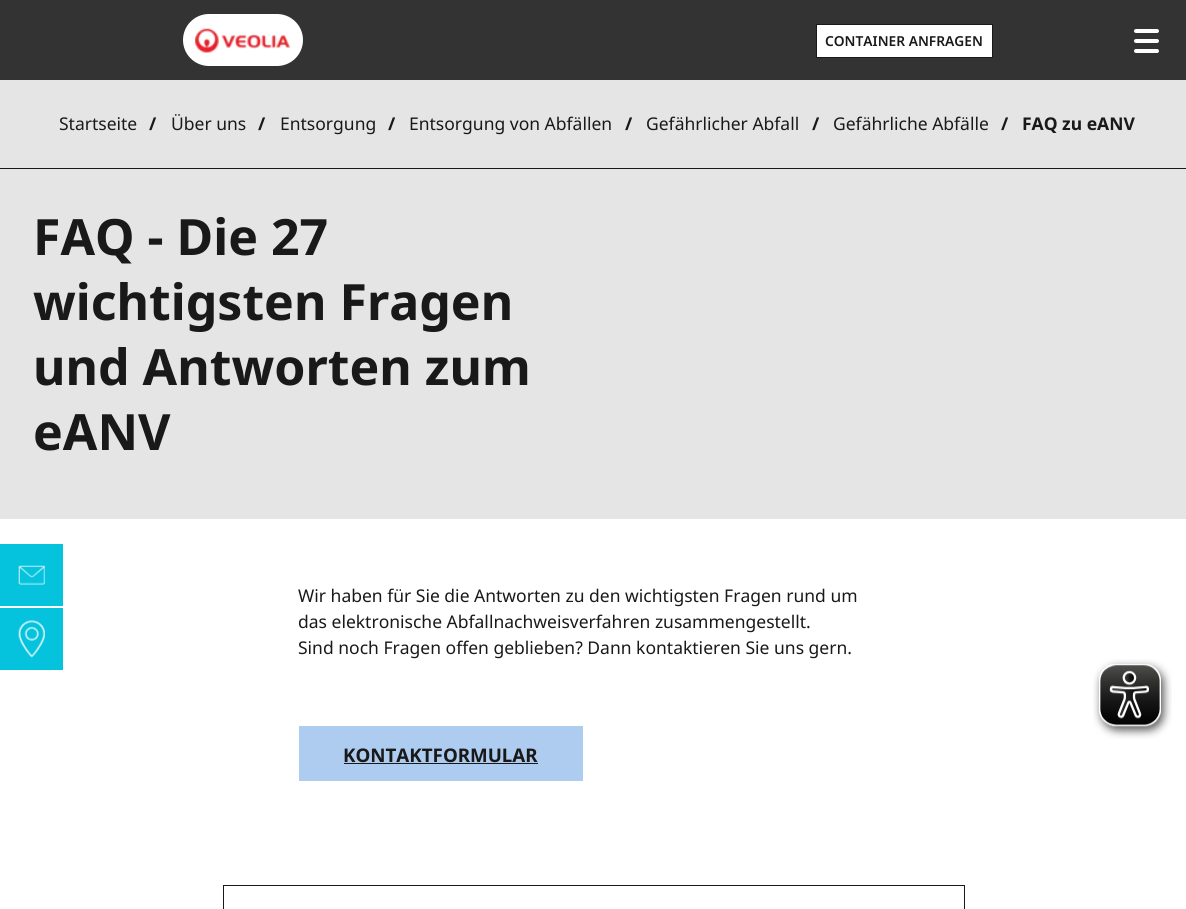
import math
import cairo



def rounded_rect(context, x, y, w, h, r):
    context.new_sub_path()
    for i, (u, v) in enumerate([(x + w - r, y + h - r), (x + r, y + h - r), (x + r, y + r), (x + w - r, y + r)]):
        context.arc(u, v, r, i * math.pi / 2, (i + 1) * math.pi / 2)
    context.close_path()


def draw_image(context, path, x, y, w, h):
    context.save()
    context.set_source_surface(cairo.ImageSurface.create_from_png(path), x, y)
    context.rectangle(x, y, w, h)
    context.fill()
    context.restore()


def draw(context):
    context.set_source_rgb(1, 1, 1)
    context.paint()
    context.set_source_rgb(5 / 255, 195 / 255, 221 / 255)
    context.rectangle(0, 544, 63, 62)
    context.fill()
    draw_image(context, "images/1.png", 18, 565, 27, 20)
    context.rectangle(0, 608, 63, 62)
    context.fill()
    draw_image(context, "images/2.png", 18, 620, 27, 38)
    context.set_source_rgb(51 / 255, 51 / 255, 51 / 255)
    context.rectangle(0, 0, 1186, 80)
    context.fill()
    context.set_source_rgb(1, 1, 1)
    rounded_rect(context, 183, 14, 120, 52, 26)
    context.fill()
    draw_image(context, "images/3.png", 195, 28, 95, 25)
    context.rectangle(816.5, 24.5, 176, 33)
    context.fill_preserve()
    context.set_source_rgb(25 / 255, 25 / 255, 25 / 255)
    context.set_line_width(1)
    context.stroke()
    context.set_source_rgb(1, 1, 1)
    rounded_rect(context, 1134, 49, 25, 4, 2)
    context.fill()
    rounded_rect(context, 1134, 29, 25, 4, 2)
    context.fill()
    rounded_rect(context, 1134, 39, 25, 4, 2)
    context.fill()
    context.set_source_rgb(229 / 255, 229 / 255, 229 / 255)
    context.rectangle(0, 80, 1186, 439)
    context.fill()
    context.set_source_rgb(25 / 255, 25 / 255, 25 / 255)
    context.rectangle(0, 168, 1186, 1)
    context.fill()
    context.set_source_rgb(173 / 255, 204 / 255, 240 / 255)
    context.rectangle(299, 726, 284, 55)
    context.fill()
    context.set_source_rgb(25 / 255, 25 / 255, 25 / 255)
    context.rectangle(344, 763, 194, 1)
    context.fill()
    context.rectangle(223.5, 885.5, 741, 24)
    context.stroke()
    draw_image(context, "images/4.png", 1093, 659, 79, 80)
    context.select_font_face("Noto Sans SemiBold")
    context.set_font_size(13.75)
    context.move_to(825, 46)
    context.show_text("CONTAINER ANFRAGEN")
    context.select_font_face("Noto Sans")
    context.set_font_size(17.5)
    context.move_to(59, 130)
    context.show_text("Startseite")
    context.select_font_face("Noto Sans", cairo.FontSlant.NORMAL, cairo.FontWeight.BOLD)
    context.move_to(149, 130)
    context.show_text("/")
    context.select_font_face("Noto Sans")
    context.move_to(171, 130)
    context.show_text("Über uns")
    context.select_font_face("Noto Sans", cairo.FontSlant.NORMAL, cairo.FontWeight.BOLD)
    context.move_to(258, 130)
    context.show_text("/")
    context.select_font_face("Noto Sans")
    context.move_to(280, 130)
    context.show_text("Entsorgung")
    context.select_font_face("Noto Sans", cairo.FontSlant.NORMAL, cairo.FontWeight.BOLD)
    context.move_to(388, 130)
    context.show_text("/")
    context.select_font_face("Noto Sans")
    context.move_to(409, 130)
    context.show_text("Entsorgung von Abfällen")
    context.select_font_face("Noto Sans", cairo.FontSlant.NORMAL, cairo.FontWeight.BOLD)
    context.move_to(625, 130)
    context.show_text("/")
    context.select_font_face("Noto Sans")
    context.move_to(646, 130)
    context.show_text("Gefährlicher Abfall")
    context.select_font_face("Noto Sans", cairo.FontSlant.NORMAL, cairo.FontWeight.BOLD)
    context.move_to(812, 130)
    context.show_text("/")
    context.select_font_face("Noto Sans")
    context.move_to(833, 130)
    context.show_text("Gefährliche Abfälle")
    context.select_font_face("Noto Sans", cairo.FontSlant.NORMAL, cairo.FontWeight.BOLD)
    context.move_to(1001, 130)
    context.show_text("/")
    context.move_to(1022, 130)
    context.show_text("FAQ zu eANV")
    context.set_font_size(50)
    context.move_to(33, 255)
    context.show_text("FAQ - Die 27")
    context.move_to(33, 320)
    context.show_text("wichtigsten Fragen")
    context.move_to(33, 385)
    context.show_text("und Antworten zum")
    context.move_to(33, 450)
    context.show_text("eANV")
    context.select_font_face("Noto Sans")
    context.set_font_size(17.5)
    context.move_to(298, 602)
    context.show_text("Wir haben für Sie die Antworten zu den wichtigsten Fragen rund um")
    context.move_to(298, 628)
    context.show_text("das elektronische Abfallnachweisverfahren zusammengestellt.")
    context.move_to(298, 654)
    context.show_text("Sind noch Fragen offen geblieben? Dann kontaktieren Sie uns gern.")
    context.select_font_face("Noto Sans", cairo.FontSlant.NORMAL, cairo.FontWeight.BOLD)
    context.set_font_size(18.75)
    context.move_to(343, 762)
    context.show_text("KONTAKTFORMULAR")


surface = cairo.ImageSurface(cairo.Format.RGB24, 1186, 909)
context = cairo.Context(surface)
options = cairo.FontOptions()
options.set_hint_metrics(cairo.HintMetrics.OFF)
options.set_hint_style(cairo.HintStyle.NONE)
context.set_font_options(options)
context.set_miter_limit(4)
draw(context)
surface.write_to_png("out.png")
